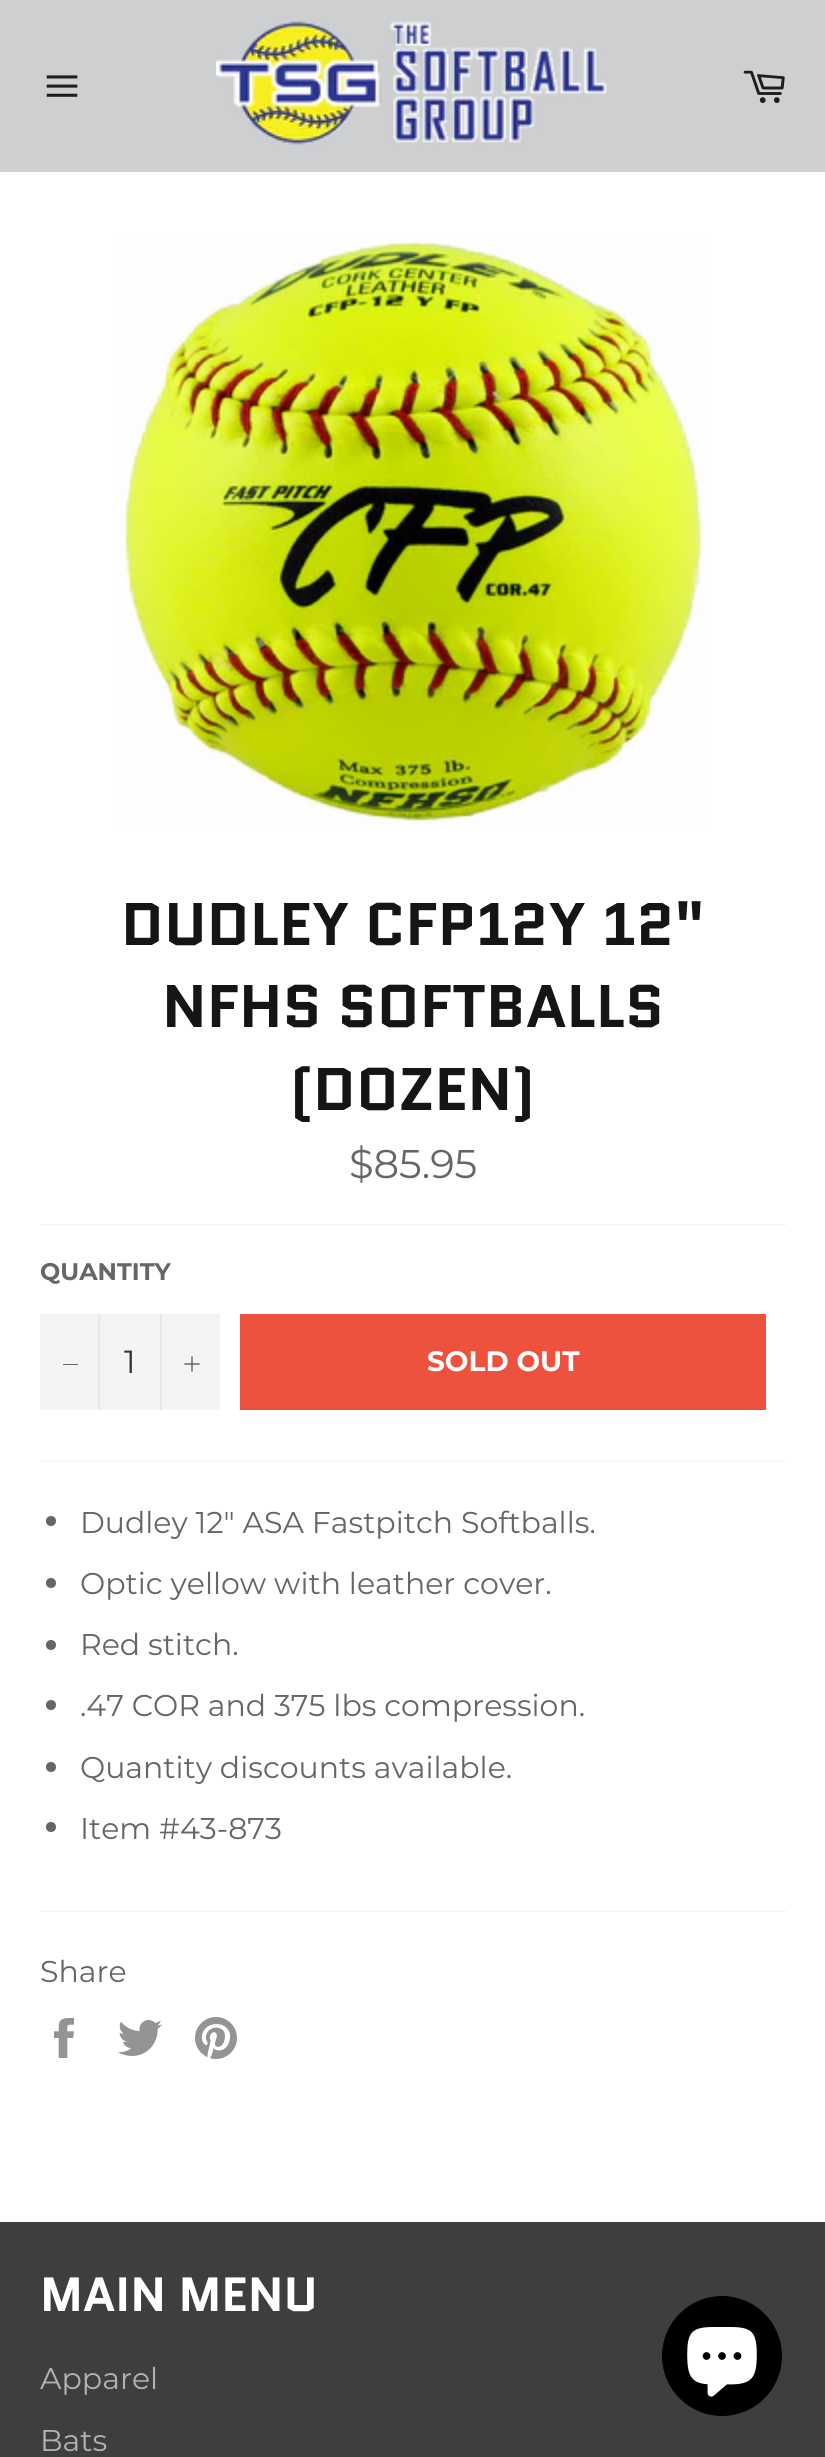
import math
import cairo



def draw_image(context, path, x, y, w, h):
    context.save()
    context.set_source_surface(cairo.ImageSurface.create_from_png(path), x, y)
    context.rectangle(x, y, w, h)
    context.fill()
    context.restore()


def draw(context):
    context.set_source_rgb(205 / 255, 207 / 255, 208 / 255)
    context.paint()
    draw_image(context, "images/1.png", 46, 75, 32, 22)
    draw_image(context, "images/2.png", 216, 21, 391, 124)
    draw_image(context, "images/3.png", 743, 70, 42, 33)
    context.set_source_rgb(1, 1, 1)
    context.rectangle(0, 172, 825, 2050)
    context.fill()
    draw_image(context, "images/4.png", 114, 232, 592, 593)
    context.set_source_rgb(247 / 255, 247 / 255, 247 / 255)
    context.rectangle(40, 1224, 746, 2)
    context.fill()
    context.set_source_rgb(244 / 255, 244 / 255, 244 / 255)
    context.rectangle(40, 1314, 180, 96)
    context.fill()
    context.set_source_rgb(231 / 255, 231 / 255, 231 / 255)
    context.rectangle(98, 1314, 2, 96)
    context.fill()
    context.set_source_rgb(102 / 255, 102 / 255, 102 / 255)
    context.rectangle(63, 1364, 15, 1)
    context.fill()
    context.set_source_rgb(231 / 255, 231 / 255, 231 / 255)
    context.rectangle(160, 1314, 2, 96)
    context.fill()
    draw_image(context, "images/5.png", 184, 1356, 16, 16)
    context.set_source_rgb(236 / 255, 82 / 255, 62 / 255)
    context.rectangle(240, 1314, 526, 96)
    context.fill()
    context.set_source_rgb(247 / 255, 247 / 255, 247 / 255)
    context.rectangle(40, 1460, 746, 2)
    context.fill()
    context.set_source_rgb(102 / 255, 102 / 255, 102 / 255)
    context.arc(51, 1521, 5, 0, 2 * math.pi)
    context.fill()
    context.arc(51, 1583, 5, 0, 2 * math.pi)
    context.fill()
    context.arc(51, 1645, 5, 0, 2 * math.pi)
    context.fill()
    context.arc(51, 1705, 5, 0, 2 * math.pi)
    context.fill()
    context.arc(51, 1767, 5, 0, 2 * math.pi)
    context.fill()
    context.arc(51, 1827, 5, 0, 2 * math.pi)
    context.fill()
    context.set_source_rgb(247 / 255, 247 / 255, 247 / 255)
    context.rectangle(40, 1910, 746, 2)
    context.fill()
    draw_image(context, "images/6.png", 54, 2018, 20, 40)
    draw_image(context, "images/7.png", 118, 2020, 44, 36)
    draw_image(context, "images/8.png", 195, 2017, 42, 42)
    context.set_source_rgb(62 / 255, 62 / 255, 62 / 255)
    context.rectangle(0, 2222, 825, 235)
    context.fill()
    context.set_source_rgb(0, 0, 0)
    context.arc(722, 2356, 60, 0, 2 * math.pi)
    context.fill()
    draw_image(context, "images/9.png", 687, 2327, 70, 70)
    context.select_font_face("Quantico", cairo.FontSlant.NORMAL, cairo.FontWeight.BOLD)
    context.set_font_size(60)
    context.set_source_rgb(21 / 255, 21 / 255, 21 / 255)
    context.move_to(121, 945)
    context.show_text("DUDLEY CFP12Y 12\"")
    context.move_to(162, 1027)
    context.show_text("NFHS SOFTBALLS")
    context.move_to(290, 1110)
    context.show_text("(DOZEN)")
    context.select_font_face("Montserrat")
    context.set_font_size(40)
    context.set_source_rgb(102 / 255, 102 / 255, 102 / 255)
    context.move_to(349, 1178)
    context.show_text("$85.95")
    context.select_font_face("Montserrat", cairo.FontSlant.NORMAL, cairo.FontWeight.BOLD)
    context.set_font_size(24)
    context.move_to(40, 1280)
    context.show_text("QUANTITY")
    context.select_font_face("Montserrat")
    context.set_font_size(32)
    context.set_source_rgb(51 / 255, 51 / 255, 51 / 255)
    context.move_to(124, 1373)
    context.show_text("1")
    context.select_font_face("Montserrat", cairo.FontSlant.NORMAL, cairo.FontWeight.BOLD)
    context.set_font_size(28)
    context.set_source_rgb(1, 1, 1)
    context.move_to(427, 1371)
    context.show_text("SOLD OUT")
    context.select_font_face("Montserrat")
    context.set_font_size(30)
    context.set_source_rgb(102 / 255, 102 / 255, 102 / 255)
    context.move_to(80, 1533)
    context.show_text("Dudley 12\" ASA Fastpitch Softballs.")
    context.move_to(80, 1594)
    context.show_text("Optic yellow with leather cover.")
    context.move_to(80, 1655)
    context.show_text("Red stitch.")
    context.move_to(80, 1716)
    context.show_text(".47 COR and 375 lbs compression.")
    context.move_to(80, 1778)
    context.show_text("Quantity discounts available.")
    context.move_to(80, 1839)
    context.show_text("Item #43-873")
    context.move_to(40, 1982)
    context.show_text("Share")
    context.select_font_face("Quantico", cairo.FontSlant.NORMAL, cairo.FontWeight.BOLD)
    context.set_font_size(48)
    context.set_source_rgb(1, 1, 1)
    context.move_to(40, 2311)
    context.show_text("MAIN MENU")
    context.select_font_face("Montserrat")
    context.set_font_size(30)
    context.set_source_rgb(178 / 255, 178 / 255, 178 / 255)
    context.move_to(40, 2389)
    context.show_text("Apparel")
    context.move_to(40, 2451)
    context.show_text("Bats")


surface = cairo.ImageSurface(cairo.Format.RGB24, 825, 2457)
context = cairo.Context(surface)
options = cairo.FontOptions()
options.set_hint_metrics(cairo.HintMetrics.OFF)
options.set_hint_style(cairo.HintStyle.NONE)
context.set_font_options(options)
context.set_miter_limit(4)
draw(context)
surface.write_to_png("out.png")
